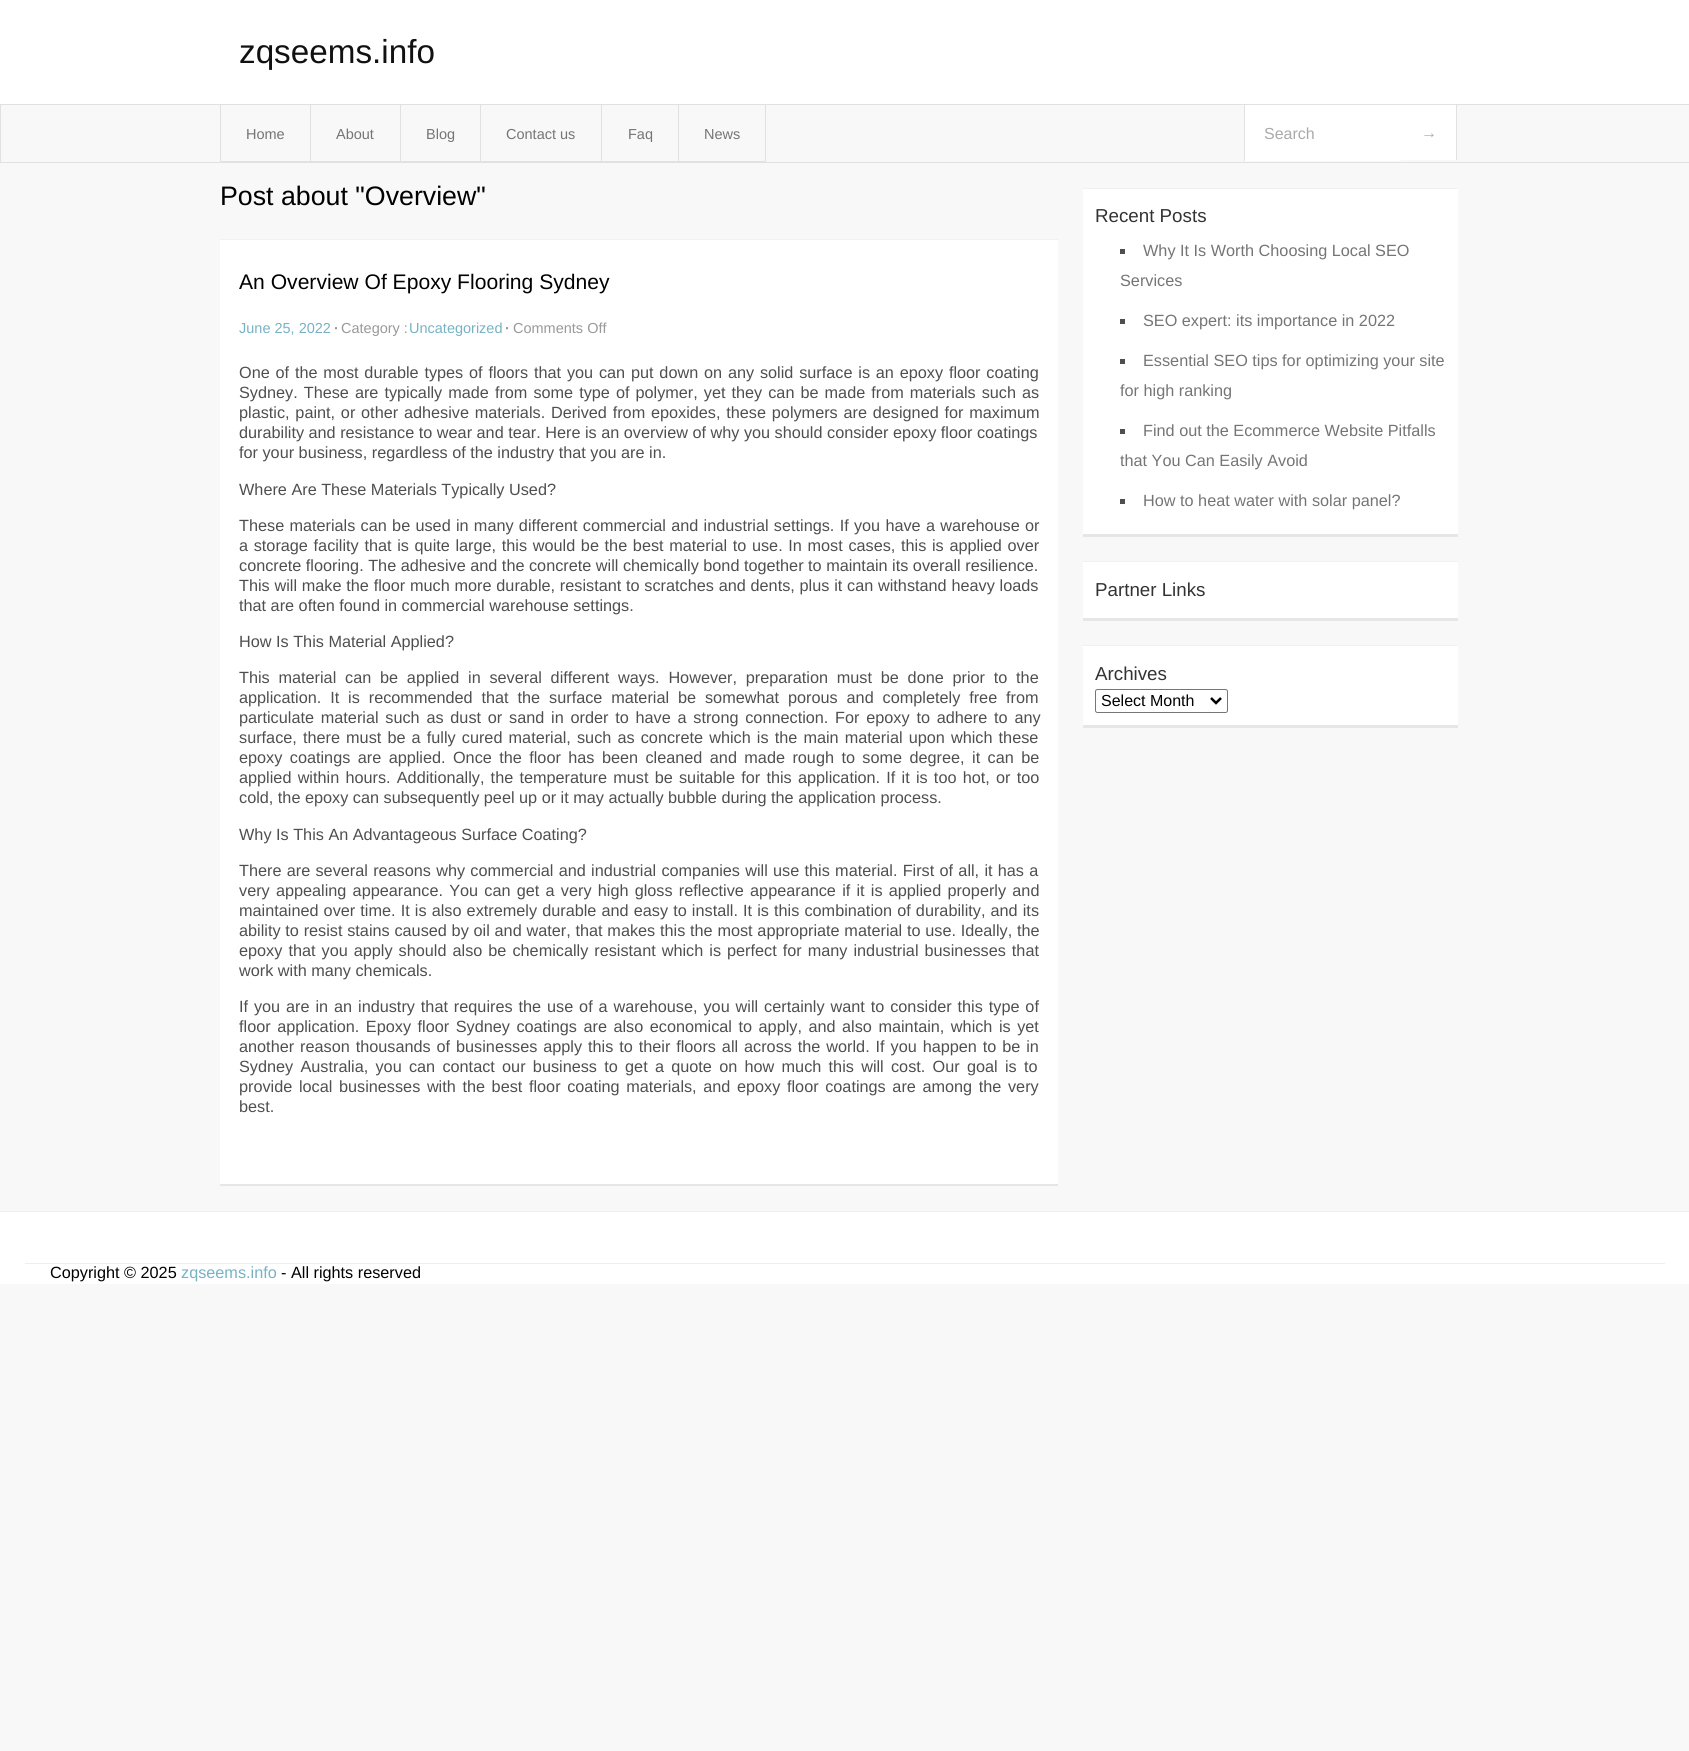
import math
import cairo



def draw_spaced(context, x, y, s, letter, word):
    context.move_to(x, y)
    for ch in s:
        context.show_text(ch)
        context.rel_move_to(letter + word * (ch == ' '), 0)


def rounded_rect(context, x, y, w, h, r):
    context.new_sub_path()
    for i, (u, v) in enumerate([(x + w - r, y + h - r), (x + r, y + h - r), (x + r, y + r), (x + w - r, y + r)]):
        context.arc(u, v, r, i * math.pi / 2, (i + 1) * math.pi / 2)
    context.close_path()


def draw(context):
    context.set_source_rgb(248 / 255, 248 / 255, 248 / 255)
    context.paint()
    context.set_source_rgb(1, 1, 1)
    context.rectangle(0, 0, 1689, 104)
    context.fill()
    context.rectangle(0.5, 104.5, 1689, 58)
    context.set_source_rgb(225 / 255, 225 / 255, 225 / 255)
    context.set_line_width(1)
    context.stroke()
    context.rectangle(220, 105, 1, 58)
    context.fill()
    context.rectangle(310, 105, 1, 58)
    context.fill()
    context.rectangle(221, 161, 90, 1)
    context.fill()
    context.rectangle(400, 105, 1, 58)
    context.fill()
    context.rectangle(311, 161, 90, 1)
    context.fill()
    context.rectangle(480, 105, 1, 58)
    context.fill()
    context.rectangle(401, 161, 80, 1)
    context.fill()
    context.rectangle(601, 105, 1, 58)
    context.fill()
    context.rectangle(481, 161, 122, 1)
    context.fill()
    context.rectangle(678, 105, 1, 58)
    context.fill()
    context.rectangle(603, 161, 76, 1)
    context.fill()
    context.rectangle(765, 105, 1, 58)
    context.fill()
    context.rectangle(679, 161, 87, 1)
    context.fill()
    context.set_source_rgb(1, 1, 1)
    context.rectangle(1245, 105, 156, 56)
    context.fill()
    context.set_source_rgb(225 / 255, 225 / 255, 225 / 255)
    context.rectangle(1244, 105, 1, 56)
    context.fill()
    context.set_source_rgb(1, 1, 1)
    context.rectangle(1401, 105, 55, 55)
    context.fill()
    context.set_source_rgb(225 / 255, 225 / 255, 225 / 255)
    context.rectangle(1456, 105, 1, 55)
    context.fill()
    context.set_source_rgb(1, 1, 1)
    context.rectangle(220, 240, 838, 944)
    context.fill()
    context.set_source_rgb(241 / 255, 241 / 255, 241 / 255)
    context.rectangle(220, 239, 838, 1)
    context.fill()
    context.set_source_rgb(230 / 255, 230 / 255, 230 / 255)
    context.rectangle(220, 1184, 838, 2)
    context.fill()
    context.set_source_rgb(1, 1, 1)
    context.rectangle(1083, 189, 375, 345)
    context.fill()
    context.set_source_rgb(241 / 255, 241 / 255, 241 / 255)
    context.rectangle(1083, 188, 375, 1)
    context.fill()
    context.set_source_rgb(230 / 255, 230 / 255, 230 / 255)
    context.rectangle(1083, 534, 375, 3)
    context.fill()
    context.set_source_rgb(78 / 255, 78 / 255, 78 / 255)
    context.rectangle(1120, 249, 5, 5)
    context.fill()
    context.rectangle(1120, 319, 5, 5)
    context.fill()
    context.rectangle(1120, 359, 5, 5)
    context.fill()
    context.rectangle(1120, 429, 5, 5)
    context.fill()
    context.rectangle(1120, 499, 5, 5)
    context.fill()
    context.set_source_rgb(1, 1, 1)
    context.rectangle(1083, 562, 375, 56)
    context.fill()
    context.set_source_rgb(241 / 255, 241 / 255, 241 / 255)
    context.rectangle(1083, 561, 375, 1)
    context.fill()
    context.set_source_rgb(230 / 255, 230 / 255, 230 / 255)
    context.rectangle(1083, 618, 375, 3)
    context.fill()
    context.set_source_rgb(1, 1, 1)
    context.rectangle(1083, 646, 375, 79)
    context.fill()
    context.set_source_rgb(241 / 255, 241 / 255, 241 / 255)
    context.rectangle(1083, 645, 375, 1)
    context.fill()
    context.set_source_rgb(230 / 255, 230 / 255, 230 / 255)
    context.rectangle(1083, 725, 375, 3)
    context.fill()
    rounded_rect(context, 1095.5, 689.5, 132, 23, 2)
    context.set_source_rgb(118 / 255, 118 / 255, 118 / 255)
    context.stroke()
    context.new_path()
    context.move_to(1211, 698)
    context.line_to(1216, 703)
    context.line_to(1221, 698)
    context.set_source_rgb(0, 0, 0)
    context.set_line_width(2.5)
    context.stroke()
    context.set_source_rgb(1, 1, 1)
    context.rectangle(0, 1212, 1689, 72)
    context.fill()
    context.set_source_rgb(238 / 255, 238 / 255, 238 / 255)
    context.rectangle(0, 1211, 1689, 1)
    context.fill()
    context.rectangle(25, 1263, 1640, 1)
    context.fill()
    context.select_font_face("Liberation Sans")
    context.set_font_size(33.25)
    context.set_source_rgb(17 / 255, 17 / 255, 17 / 255)
    context.move_to(239, 63)
    context.show_text("zqseems.info")
    context.set_font_size(14.5)
    context.set_source_rgb(118 / 255, 117 / 255, 117 / 255)
    context.move_to(246, 139)
    context.show_text("Home")
    context.move_to(336, 139)
    context.show_text("About")
    context.move_to(426, 139)
    context.show_text("Blog")
    context.move_to(506, 139)
    context.show_text("Contact us")
    context.move_to(628, 139)
    context.show_text("Faq")
    context.move_to(704, 139)
    context.show_text("News")
    context.set_font_size(16)
    context.set_source_rgb(170 / 255, 170 / 255, 170 / 255)
    context.move_to(1264, 139)
    context.show_text("Search")
    context.move_to(1421, 138)
    context.show_text("→")
    context.set_font_size(26.75)
    context.set_source_rgb(0, 0, 0)
    context.move_to(220, 205)
    context.show_text("Post about \"Overview\"")
    context.set_font_size(21.1)
    context.move_to(239, 289)
    context.show_text("An Overview Of Epoxy Flooring Sydney")
    context.set_font_size(14.5)
    context.set_source_rgb(118 / 255, 178 / 255, 196 / 255)
    context.move_to(239, 333)
    context.show_text("June 25, 2022")
    context.select_font_face("Liberation Sans", cairo.FontSlant.NORMAL, cairo.FontWeight.BOLD)
    context.set_source_rgb(153 / 255, 153 / 255, 153 / 255)
    context.move_to(334, 333)
    context.show_text("·")
    context.select_font_face("Liberation Sans")
    context.move_to(341, 333)
    context.show_text("Category :")
    context.set_source_rgb(118 / 255, 178 / 255, 196 / 255)
    context.move_to(409, 333)
    context.show_text("Uncategorized")
    context.select_font_face("Liberation Sans", cairo.FontSlant.NORMAL, cairo.FontWeight.BOLD)
    context.set_source_rgb(153 / 255, 153 / 255, 153 / 255)
    context.move_to(505, 333)
    context.show_text("·")
    context.select_font_face("Liberation Sans")
    context.move_to(513, 333)
    context.show_text("Comments Off")
    context.set_font_size(16.25)
    context.set_source_rgb(79 / 255, 79 / 255, 79 / 255)
    draw_spaced(context, 239, 378, "One of the most durable types of floors that you can put down on any solid surface is an epoxy floor coating", 0, 1.3)
    draw_spaced(context, 239, 398, "Sydney. These are typically made from some type of polymer, yet they can be made from materials such as", 0, 1.5)
    draw_spaced(context, 239, 418, "plastic, paint, or other adhesive materials. Derived from epoxides, these polymers are designed for maximum", 0, 1.25)
    context.move_to(239, 438)
    context.show_text("durability and resistance to wear and tear. Here is an overview of why you should consider epoxy floor coatings")
    context.move_to(239, 458)
    context.show_text("for your business, regardless of the industry that you are in.")
    context.move_to(239, 495)
    context.show_text("Where Are These Materials Typically Used?")
    draw_spaced(context, 239, 531, "These materials can be used in many different commercial and industrial settings. If you have a warehouse or", 0, 0.75)
    draw_spaced(context, 239, 551, "a storage facility that is quite large, this would be the best material to use. In most cases, this is applied over", 0, 1.15)
    context.move_to(239, 571)
    context.show_text("concrete flooring. The adhesive and the concrete will chemically bond together to maintain its overall resilience.")
    draw_spaced(context, 239, 591, "This will make the floor much more durable, resistant to scratches and dents, plus it can withstand heavy loads", 0, 0.25)
    context.move_to(239, 611)
    context.show_text("that are often found in commercial warehouse settings.")
    context.move_to(239, 647)
    context.show_text("How Is This Material Applied?")
    draw_spaced(context, 239, 683, "This material can be applied in several different ways. However, preparation must be done prior to the", 0, 4.25)
    draw_spaced(context, 239, 703, "application. It is recommended that the surface material be somewhat porous and completely free from", 0, 4.4)
    draw_spaced(context, 239, 723, "particulate material such as dust or sand in order to have a strong connection. For epoxy to adhere to any", 0, 2.25)
    draw_spaced(context, 239, 743, "surface, there must be a fully cured material, such as concrete which is the main material upon which these", 0, 1.6)
    draw_spaced(context, 239, 763, "epoxy coatings are applied. Once the floor has been cleaned and made rough to some degree, it can be", 0, 2.9)
    draw_spaced(context, 239, 783, "applied within hours. Additionally, the temperature must be suitable for this application. If it is too hot, or too", 0, 1.7)
    context.move_to(239, 803)
    context.show_text("cold, the epoxy can subsequently peel up or it may actually bubble during the application process.")
    context.move_to(239, 840)
    context.show_text("Why Is This An Advantageous Surface Coating?")
    draw_spaced(context, 239, 876, "There are several reasons why commercial and industrial companies will use this material. First of all, it has a", 0, 0.75)
    draw_spaced(context, 239, 896, "very appealing appearance. You can get a very high gloss reflective appearance if it is applied properly and", 0, 1.7)
    draw_spaced(context, 239, 916, "maintained over time. It is also extremely durable and easy to install. It is this combination of durability, and its", 0, 0.6)
    draw_spaced(context, 239, 936, "ability to resist stains caused by oil and water, that makes this the most appropriate material to use. Ideally, the", 0, 0.25)
    draw_spaced(context, 239, 956, "epoxy that you apply should also be chemically resistant which is perfect for many industrial businesses that", 0, 1.5)
    context.move_to(239, 976)
    context.show_text("work with many chemicals.")
    draw_spaced(context, 239, 1012, "If you are in an industry that requires the use of a warehouse, you will certainly want to consider this type of", 0, 1.4)
    draw_spaced(context, 239, 1032, "floor application. Epoxy floor Sydney coatings are also economical to apply, and also maintain, which is yet", 0, 2)
    draw_spaced(context, 239, 1052, "another reason thousands of businesses apply this to their floors all across the world. If you happen to be in", 0, 1.4)
    draw_spaced(context, 239, 1072, "Sydney Australia, you can contact our business to get a quote on how much this will cost. Our goal is to", 0, 2.75)
    draw_spaced(context, 239, 1092, "provide local businesses with the best floor coating materials, and epoxy floor coatings are among the very", 0, 2.1)
    context.move_to(239, 1112)
    context.show_text("best.")
    context.set_font_size(18.75)
    context.set_source_rgb(51 / 255, 51 / 255, 51 / 255)
    context.move_to(1095, 222)
    context.show_text("Recent Posts")
    context.set_font_size(16.25)
    context.set_source_rgb(118 / 255, 117 / 255, 117 / 255)
    context.move_to(1143, 256)
    context.show_text("Why It Is Worth Choosing Local SEO")
    context.move_to(1120, 286)
    context.show_text("Services")
    context.move_to(1143, 326)
    context.show_text("SEO expert: its importance in 2022")
    context.move_to(1143, 366)
    context.show_text("Essential SEO tips for optimizing your site")
    context.move_to(1120, 396)
    context.show_text("for high ranking")
    context.move_to(1143, 436)
    context.show_text("Find out the Ecommerce Website Pitfalls")
    context.move_to(1120, 466)
    context.show_text("that You Can Easily Avoid")
    context.move_to(1143, 506)
    context.show_text("How to heat water with solar panel?")
    context.set_font_size(18.75)
    context.set_source_rgb(51 / 255, 51 / 255, 51 / 255)
    context.move_to(1095, 596)
    context.show_text("Partner Links")
    context.move_to(1095, 680)
    context.show_text("Archives")
    context.set_font_size(16)
    context.set_source_rgb(0, 0, 0)
    context.move_to(1101, 706)
    context.show_text("Select Month")
    context.set_font_size(16.25)
    context.move_to(50, 1278)
    context.show_text("Copyright © 2025")
    context.set_source_rgb(118 / 255, 178 / 255, 196 / 255)
    context.move_to(181, 1278)
    context.show_text("zqseems.info")
    context.set_source_rgb(0, 0, 0)
    context.move_to(281, 1278)
    context.show_text("- All rights reserved")


surface = cairo.ImageSurface(cairo.Format.RGB24, 1689, 1751)
context = cairo.Context(surface)
options = cairo.FontOptions()
options.set_hint_metrics(cairo.HintMetrics.OFF)
options.set_hint_style(cairo.HintStyle.NONE)
context.set_font_options(options)
context.set_miter_limit(4)
draw(context)
surface.write_to_png("out.png")
